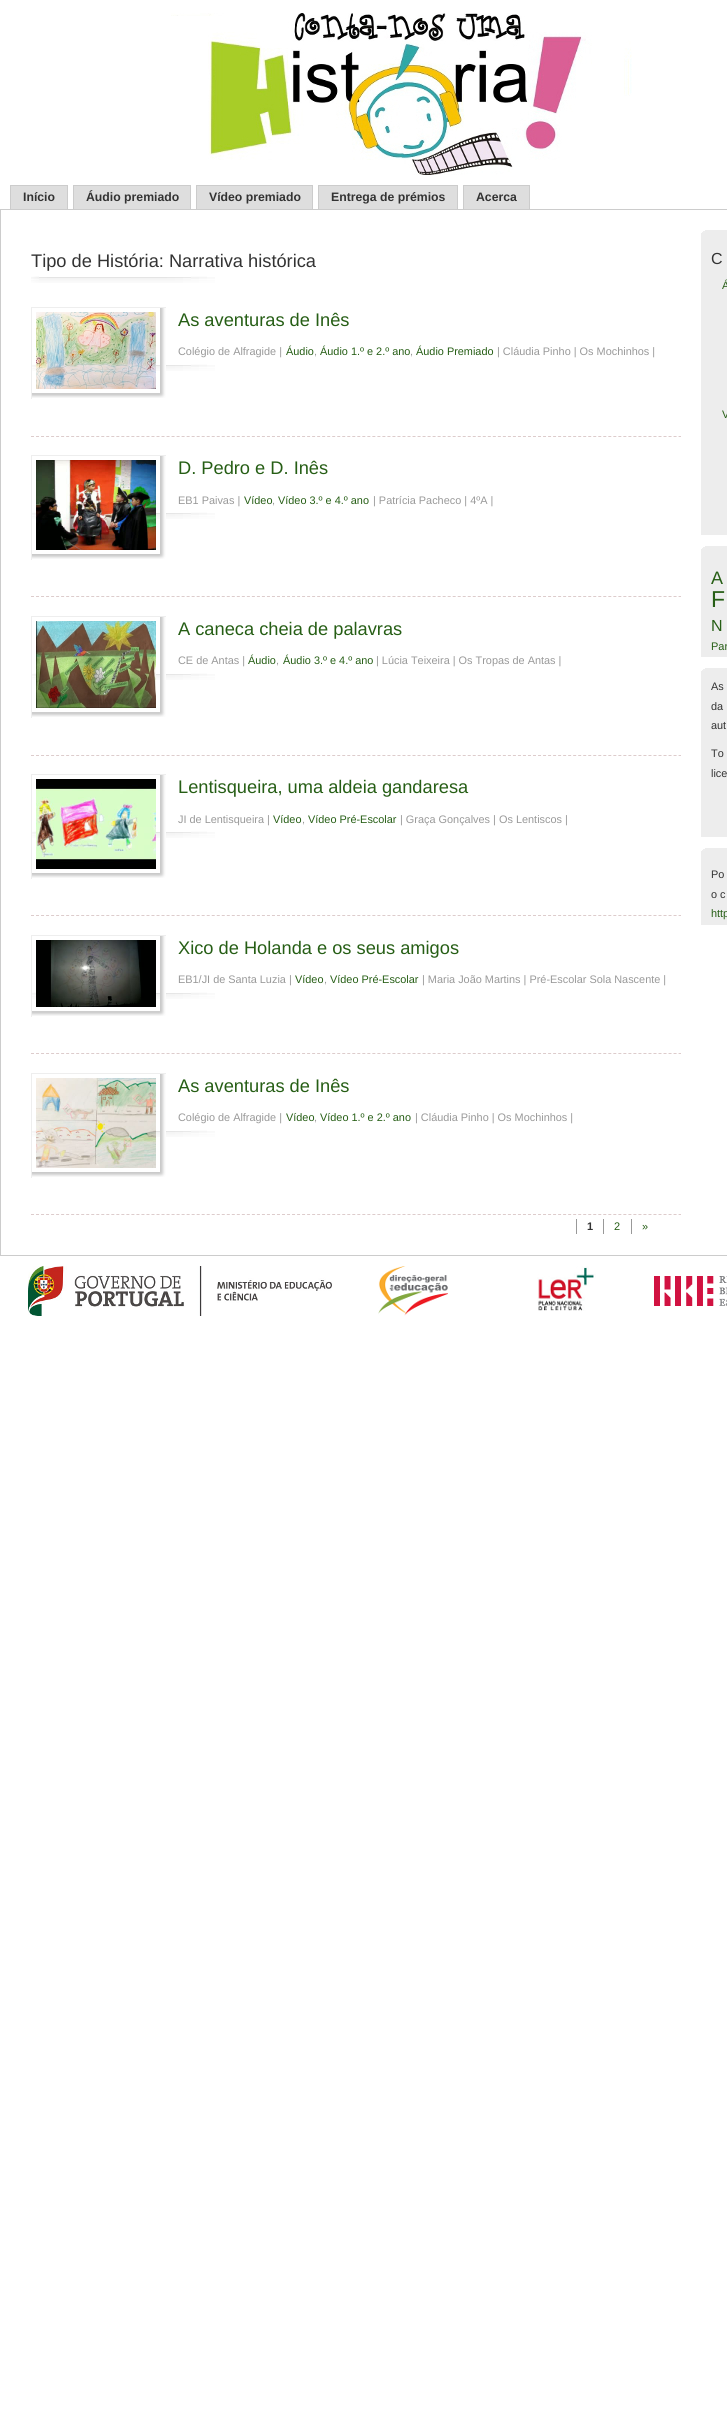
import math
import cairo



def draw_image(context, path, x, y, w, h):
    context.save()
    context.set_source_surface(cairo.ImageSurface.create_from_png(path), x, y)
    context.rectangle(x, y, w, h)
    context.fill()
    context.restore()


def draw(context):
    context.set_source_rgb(1, 1, 1)
    context.paint()
    draw_image(context, "images/1.png", 171, 13, 461, 162)
    context.set_source_rgb(222 / 255, 222 / 255, 222 / 255)
    context.rectangle(11, 186, 56, 23)
    context.fill()
    context.set_source_rgb(204 / 255, 204 / 255, 204 / 255)
    context.rectangle(10, 185, 58, 1)
    context.fill()
    context.rectangle(67, 185, 1, 24)
    context.fill()
    context.rectangle(10, 185, 1, 24)
    context.fill()
    context.set_source_rgb(222 / 255, 222 / 255, 222 / 255)
    context.rectangle(74, 186, 116, 23)
    context.fill()
    context.set_source_rgb(204 / 255, 204 / 255, 204 / 255)
    context.rectangle(73, 185, 118, 1)
    context.fill()
    context.rectangle(190, 185, 1, 24)
    context.fill()
    context.rectangle(73, 185, 1, 24)
    context.fill()
    context.set_source_rgb(222 / 255, 222 / 255, 222 / 255)
    context.rectangle(197, 186, 115, 23)
    context.fill()
    context.set_source_rgb(204 / 255, 204 / 255, 204 / 255)
    context.rectangle(196, 185, 117, 1)
    context.fill()
    context.rectangle(312, 185, 1, 24)
    context.fill()
    context.rectangle(196, 185, 1, 24)
    context.fill()
    context.set_source_rgb(222 / 255, 222 / 255, 222 / 255)
    context.rectangle(319, 186, 138, 23)
    context.fill()
    context.set_source_rgb(204 / 255, 204 / 255, 204 / 255)
    context.rectangle(318, 185, 140, 1)
    context.fill()
    context.rectangle(457, 185, 1, 24)
    context.fill()
    context.rectangle(318, 185, 1, 24)
    context.fill()
    context.set_source_rgb(222 / 255, 222 / 255, 222 / 255)
    context.rectangle(464, 186, 65, 23)
    context.fill()
    context.set_source_rgb(204 / 255, 204 / 255, 204 / 255)
    context.rectangle(463, 185, 67, 1)
    context.fill()
    context.rectangle(529, 185, 1, 24)
    context.fill()
    context.rectangle(463, 185, 1, 24)
    context.fill()
    context.rectangle(0.5, 209.5, 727, 1046)
    context.set_line_width(1)
    context.stroke()
    draw_image(context, "images/2.png", 31, 276, 184, 7)
    context.new_path()
    context.move_to(31, 436.5)
    context.line_to(681, 436.5)
    context.set_source_rgb(221 / 255, 204 / 255, 204 / 255)
    context.set_dash([3, 2.02])
    context.stroke()
    draw_image(context, "images/4.png", 32, 364, 183, 7)
    draw_image(context, "images/3.png", 32, 308, 134, 90)
    context.set_source_rgb(238 / 255, 238 / 255, 238 / 255)
    context.rectangle(31, 307, 135, 1)
    context.fill()
    context.rectangle(31, 307, 1, 92)
    context.fill()
    context.new_path()
    context.move_to(31, 596.5)
    context.line_to(681, 596.5)
    context.set_source_rgb(221 / 255, 204 / 255, 204 / 255)
    context.stroke()
    draw_image(context, "images/4.png", 32, 512, 183, 7)
    draw_image(context, "images/5.png", 32, 456, 134, 103)
    context.set_source_rgb(238 / 255, 238 / 255, 238 / 255)
    context.rectangle(31, 455, 135, 1)
    context.fill()
    context.rectangle(31, 455, 1, 105)
    context.fill()
    context.new_path()
    context.move_to(31, 755.5)
    context.line_to(681, 755.5)
    context.set_source_rgb(221 / 255, 204 / 255, 204 / 255)
    context.stroke()
    draw_image(context, "images/4.png", 32, 673, 183, 7)
    draw_image(context, "images/6.png", 32, 617, 134, 100)
    context.set_source_rgb(238 / 255, 238 / 255, 238 / 255)
    context.rectangle(31, 616, 135, 1)
    context.fill()
    context.rectangle(31, 616, 1, 102)
    context.fill()
    context.new_path()
    context.move_to(31, 915.5)
    context.line_to(681, 915.5)
    context.set_source_rgb(221 / 255, 204 / 255, 204 / 255)
    context.stroke()
    draw_image(context, "images/4.png", 32, 831, 183, 7)
    draw_image(context, "images/7.png", 32, 775, 134, 103)
    context.set_source_rgb(238 / 255, 238 / 255, 238 / 255)
    context.rectangle(31, 774, 135, 1)
    context.fill()
    context.rectangle(31, 774, 1, 105)
    context.fill()
    context.new_path()
    context.move_to(31, 1053.5)
    context.line_to(681, 1053.5)
    context.set_source_rgb(221 / 255, 204 / 255, 204 / 255)
    context.stroke()
    draw_image(context, "images/4.png", 32, 992, 183, 7)
    draw_image(context, "images/8.png", 32, 936, 134, 80)
    context.set_source_rgb(238 / 255, 238 / 255, 238 / 255)
    context.rectangle(31, 935, 135, 1)
    context.fill()
    context.rectangle(31, 935, 1, 82)
    context.fill()
    context.new_path()
    context.move_to(31, 1214.5)
    context.line_to(681, 1214.5)
    context.set_source_rgb(221 / 255, 204 / 255, 204 / 255)
    context.stroke()
    draw_image(context, "images/4.png", 32, 1130, 183, 7)
    draw_image(context, "images/9.png", 32, 1074, 134, 103)
    context.set_source_rgb(238 / 255, 238 / 255, 238 / 255)
    context.rectangle(31, 1073, 135, 1)
    context.fill()
    context.rectangle(31, 1073, 1, 105)
    context.fill()
    context.set_source_rgb(153 / 255, 153 / 255, 153 / 255)
    context.rectangle(603, 1219, 1, 15)
    context.fill()
    context.rectangle(576, 1219, 1, 15)
    context.fill()
    context.rectangle(631, 1219, 1, 15)
    context.fill()
    context.set_source_rgb(237 / 255, 237 / 255, 237 / 255)
    context.rectangle(701, 230, 26, 305)
    context.fill()
    draw_image(context, "images/10.png", 701, 230, 4, 3)
    context.rectangle(701, 546, 26, 111)
    context.fill()
    draw_image(context, "images/10.png", 701, 546, 4, 3)
    context.rectangle(701, 668, 26, 169)
    context.fill()
    draw_image(context, "images/10.png", 701, 668, 4, 3)
    context.rectangle(701, 848, 26, 77)
    context.fill()
    draw_image(context, "images/10.png", 701, 848, 4, 3)
    draw_image(context, "images/11.png", 28, 1266, 420, 50)
    draw_image(context, "images/12.png", 537, 1266, 59, 45)
    draw_image(context, "images/13.png", 654, 1276, 73, 30)
    context.select_font_face("Liberation Sans", cairo.FontSlant.NORMAL, cairo.FontWeight.BOLD)
    context.set_font_size(12.25)
    context.set_source_rgb(51 / 255, 51 / 255, 51 / 255)
    context.move_to(23, 201)
    context.show_text("Início")
    context.move_to(86, 201)
    context.show_text("Áudio premiado")
    context.move_to(209, 201)
    context.show_text("Vídeo premiado")
    context.move_to(331, 201)
    context.show_text("Entrega de prémios")
    context.move_to(476, 201)
    context.show_text("Acerca")
    context.select_font_face("Liberation Sans")
    context.set_font_size(18.25)
    context.move_to(31, 267)
    context.show_text("Tipo de História: Narrativa histórica")
    context.set_source_rgb(38 / 255, 94 / 255, 21 / 255)
    context.move_to(178, 326)
    context.show_text("As aventuras de Inês")
    context.set_font_size(10.9)
    context.set_source_rgb(153 / 255, 153 / 255, 153 / 255)
    context.move_to(178, 355)
    context.show_text("Colégio de Alfragide |")
    context.set_source_rgb(38 / 255, 94 / 255, 21 / 255)
    context.move_to(286, 355)
    context.show_text("Áudio")
    context.set_source_rgb(153 / 255, 153 / 255, 153 / 255)
    context.move_to(314, 355)
    context.show_text(",")
    context.set_source_rgb(38 / 255, 94 / 255, 21 / 255)
    context.move_to(320, 355)
    context.show_text("Áudio 1.º e 2.º ano")
    context.set_source_rgb(153 / 255, 153 / 255, 153 / 255)
    context.move_to(410, 355)
    context.show_text(",")
    context.set_source_rgb(38 / 255, 94 / 255, 21 / 255)
    context.move_to(416, 355)
    context.show_text("Áudio Premiado")
    context.set_source_rgb(153 / 255, 153 / 255, 153 / 255)
    context.move_to(497, 355)
    context.show_text("| Cláudia Pinho | Os Mochinhos |")
    context.set_font_size(18.25)
    context.set_source_rgb(38 / 255, 94 / 255, 21 / 255)
    context.move_to(178, 474)
    context.show_text("D. Pedro e D. Inês")
    context.set_font_size(10.9)
    context.set_source_rgb(153 / 255, 153 / 255, 153 / 255)
    context.move_to(178, 504)
    context.show_text("EB1 Paivas |")
    context.set_source_rgb(38 / 255, 94 / 255, 21 / 255)
    context.move_to(244, 504)
    context.show_text("Vídeo")
    context.set_source_rgb(153 / 255, 153 / 255, 153 / 255)
    context.move_to(272, 504)
    context.show_text(",")
    context.set_source_rgb(38 / 255, 94 / 255, 21 / 255)
    context.move_to(278, 504)
    context.show_text("Vídeo 3.º e 4.º ano")
    context.set_source_rgb(153 / 255, 153 / 255, 153 / 255)
    context.move_to(373, 504)
    context.show_text("| Patrícia Pacheco | 4ºA |")
    context.set_font_size(18.25)
    context.set_source_rgb(38 / 255, 94 / 255, 21 / 255)
    context.move_to(178, 635)
    context.show_text("A caneca cheia de palavras")
    context.set_font_size(10.9)
    context.set_source_rgb(153 / 255, 153 / 255, 153 / 255)
    context.move_to(178, 664)
    context.show_text("CE de Antas |")
    context.set_source_rgb(38 / 255, 94 / 255, 21 / 255)
    context.move_to(248, 664)
    context.show_text("Áudio")
    context.set_source_rgb(153 / 255, 153 / 255, 153 / 255)
    context.move_to(276, 664)
    context.show_text(",")
    context.set_source_rgb(38 / 255, 94 / 255, 21 / 255)
    context.move_to(283, 664)
    context.show_text("Áudio 3.º e 4.º ano")
    context.set_source_rgb(153 / 255, 153 / 255, 153 / 255)
    context.move_to(376, 664)
    context.show_text("| Lúcia Teixeira | Os Tropas de Antas |")
    context.set_font_size(18.25)
    context.set_source_rgb(38 / 255, 94 / 255, 21 / 255)
    context.move_to(178, 793)
    context.show_text("Lentisqueira, uma aldeia gandaresa")
    context.set_font_size(10.9)
    context.set_source_rgb(153 / 255, 153 / 255, 153 / 255)
    context.move_to(178, 823)
    context.show_text("JI de Lentisqueira |")
    context.set_source_rgb(38 / 255, 94 / 255, 21 / 255)
    context.move_to(273, 823)
    context.show_text("Vídeo")
    context.set_source_rgb(153 / 255, 153 / 255, 153 / 255)
    context.move_to(302, 823)
    context.show_text(",")
    context.set_source_rgb(38 / 255, 94 / 255, 21 / 255)
    context.move_to(308, 823)
    context.show_text("Vídeo Pré-Escolar")
    context.set_source_rgb(153 / 255, 153 / 255, 153 / 255)
    context.move_to(400, 823)
    context.show_text("| Graça Gonçalves | Os Lentiscos |")
    context.set_font_size(18.25)
    context.set_source_rgb(38 / 255, 94 / 255, 21 / 255)
    context.move_to(178, 954)
    context.show_text("Xico de Holanda e os seus amigos")
    context.set_font_size(10.9)
    context.set_source_rgb(153 / 255, 153 / 255, 153 / 255)
    context.move_to(178, 983)
    context.show_text("EB1/JI de Santa Luzia |")
    context.set_source_rgb(38 / 255, 94 / 255, 21 / 255)
    context.move_to(295, 983)
    context.show_text("Vídeo")
    context.set_source_rgb(153 / 255, 153 / 255, 153 / 255)
    context.move_to(324, 983)
    context.show_text(",")
    context.set_source_rgb(38 / 255, 94 / 255, 21 / 255)
    context.move_to(330, 983)
    context.show_text("Vídeo Pré-Escolar")
    context.set_source_rgb(153 / 255, 153 / 255, 153 / 255)
    context.move_to(422, 983)
    context.show_text("| Maria João Martins | Pré-Escolar Sola Nascente |")
    context.set_font_size(18.25)
    context.set_source_rgb(38 / 255, 94 / 255, 21 / 255)
    context.move_to(178, 1092)
    context.show_text("As aventuras de Inês")
    context.set_font_size(10.9)
    context.set_source_rgb(153 / 255, 153 / 255, 153 / 255)
    context.move_to(178, 1121)
    context.show_text("Colégio de Alfragide |")
    context.set_source_rgb(38 / 255, 94 / 255, 21 / 255)
    context.move_to(286, 1121)
    context.show_text("Vídeo")
    context.set_source_rgb(153 / 255, 153 / 255, 153 / 255)
    context.move_to(314, 1121)
    context.show_text(",")
    context.set_source_rgb(38 / 255, 94 / 255, 21 / 255)
    context.move_to(320, 1121)
    context.show_text("Vídeo 1.º e 2.º ano")
    context.set_source_rgb(153 / 255, 153 / 255, 153 / 255)
    context.move_to(415, 1121)
    context.show_text("| Cláudia Pinho | Os Mochinhos |")
    context.select_font_face("Liberation Sans", cairo.FontSlant.NORMAL, cairo.FontWeight.BOLD)
    context.set_font_size(11)
    context.set_source_rgb(51 / 255, 51 / 255, 51 / 255)
    context.move_to(587, 1230)
    context.show_text("1")
    context.select_font_face("Liberation Sans")
    context.set_source_rgb(38 / 255, 94 / 255, 21 / 255)
    context.move_to(614, 1230)
    context.show_text("2")
    context.move_to(642, 1230)
    context.show_text("»")
    context.set_font_size(16)
    context.set_source_rgb(51 / 255, 51 / 255, 51 / 255)
    context.move_to(711, 264)
    context.show_text("C")
    context.set_font_size(10.9)
    context.set_source_rgb(38 / 255, 94 / 255, 21 / 255)
    context.move_to(722, 289)
    context.show_text("Á")
    context.move_to(722, 418)
    context.show_text("V")
    context.set_font_size(18)
    context.move_to(711, 584)
    context.show_text("A")
    context.set_font_size(23)
    context.move_to(711, 607)
    context.show_text("F")
    context.set_font_size(16)
    context.move_to(711, 631)
    context.show_text("N")
    context.set_font_size(11)
    context.move_to(711, 650)
    context.show_text("Par")
    context.set_font_size(10.9)
    context.set_source_rgb(51 / 255, 51 / 255, 51 / 255)
    context.move_to(711, 690)
    context.show_text("As")
    context.move_to(711, 710)
    context.show_text("da")
    context.move_to(711, 729)
    context.show_text("aut")
    context.move_to(711, 757)
    context.show_text("To")
    context.move_to(711, 777)
    context.show_text("lice")
    context.move_to(711, 878)
    context.show_text("Po")
    context.move_to(711, 898)
    context.show_text("o c")
    context.set_source_rgb(38 / 255, 94 / 255, 21 / 255)
    context.move_to(711, 917)
    context.show_text("http")


surface = cairo.ImageSurface(cairo.Format.RGB24, 727, 2418)
context = cairo.Context(surface)
options = cairo.FontOptions()
options.set_hint_metrics(cairo.HintMetrics.OFF)
options.set_hint_style(cairo.HintStyle.NONE)
context.set_font_options(options)
context.set_miter_limit(4)
draw(context)
surface.write_to_png("out.png")
